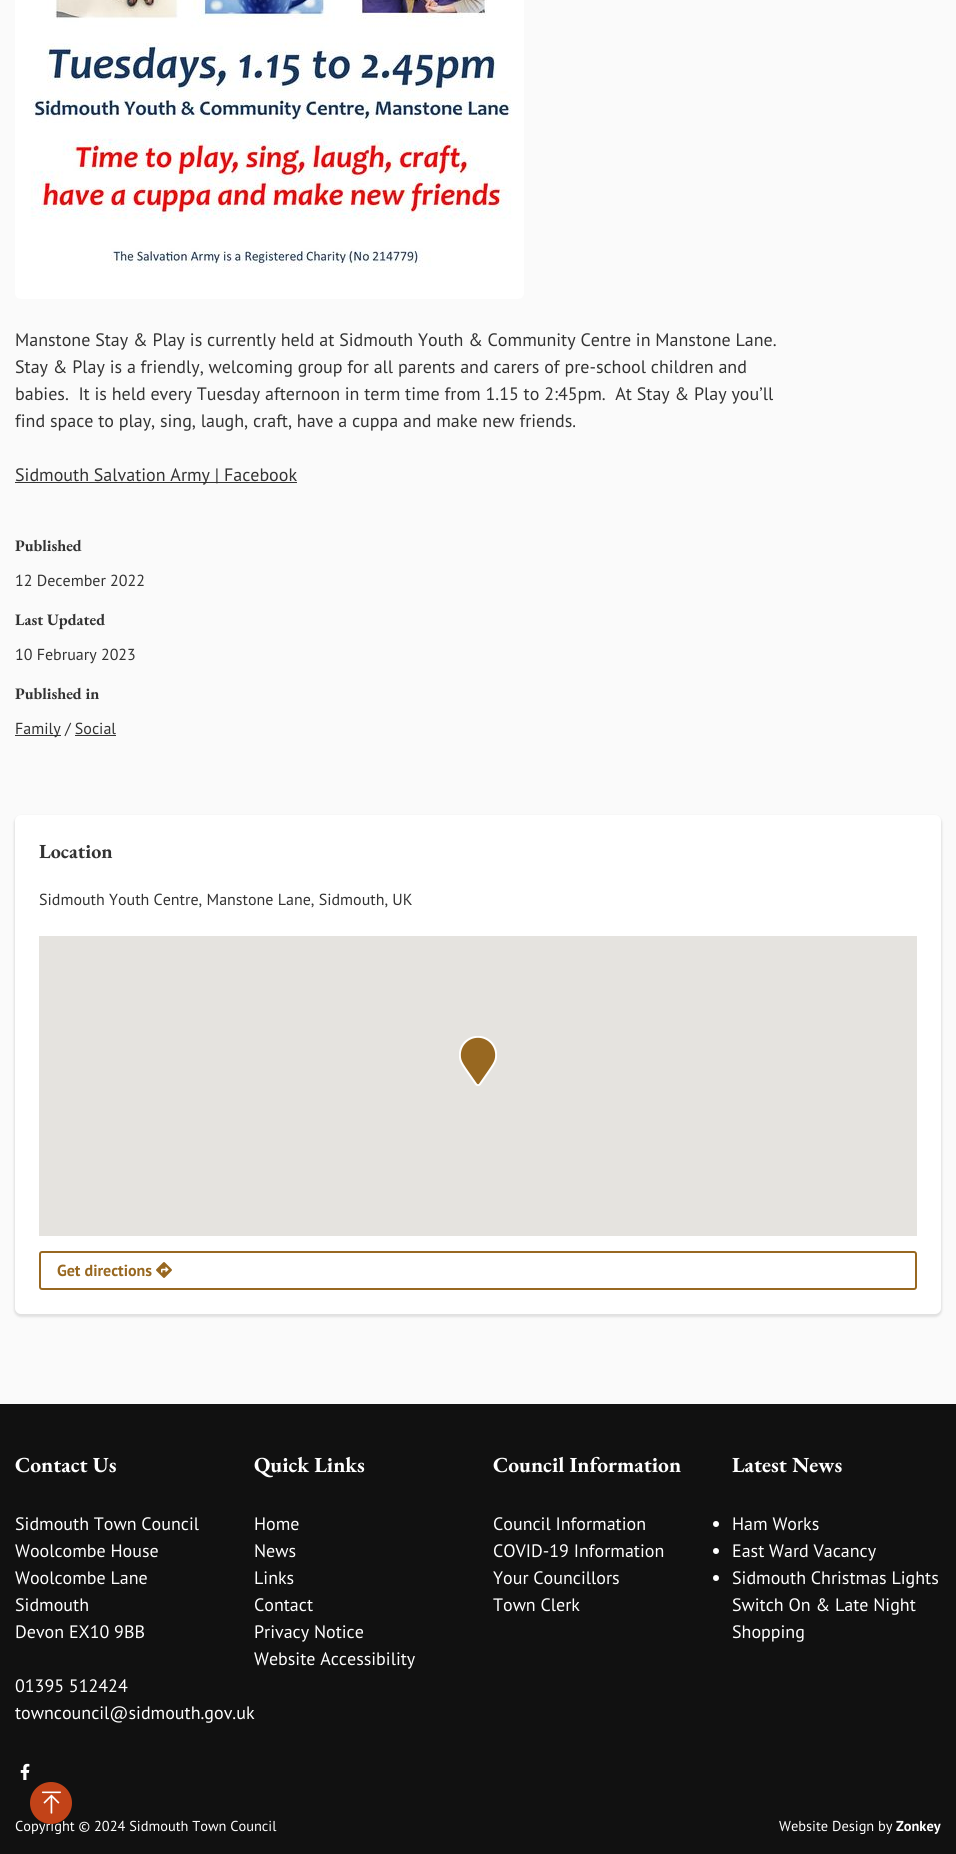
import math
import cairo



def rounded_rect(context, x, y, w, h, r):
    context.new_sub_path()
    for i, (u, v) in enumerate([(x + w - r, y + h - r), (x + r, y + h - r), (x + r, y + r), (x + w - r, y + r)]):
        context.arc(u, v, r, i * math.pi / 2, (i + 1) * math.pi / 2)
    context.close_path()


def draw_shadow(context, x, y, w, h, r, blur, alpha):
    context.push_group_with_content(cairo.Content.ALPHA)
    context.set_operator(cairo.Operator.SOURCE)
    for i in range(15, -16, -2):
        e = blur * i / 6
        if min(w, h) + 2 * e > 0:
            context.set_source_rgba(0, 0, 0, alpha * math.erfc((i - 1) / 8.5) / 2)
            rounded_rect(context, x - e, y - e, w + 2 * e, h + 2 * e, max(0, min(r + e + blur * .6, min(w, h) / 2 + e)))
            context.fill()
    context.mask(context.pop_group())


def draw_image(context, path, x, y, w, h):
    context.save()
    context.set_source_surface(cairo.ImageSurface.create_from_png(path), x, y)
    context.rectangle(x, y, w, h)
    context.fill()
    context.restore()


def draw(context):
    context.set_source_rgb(250 / 255, 250 / 255, 250 / 255)
    context.paint()
    draw_image(context, "images/1.png", 15, 0, 509, 299)
    context.set_source_rgb(51 / 255, 51 / 255, 51 / 255)
    context.rectangle(15, 482, 282, 1)
    context.fill()
    context.rectangle(15, 735, 46, 1)
    context.fill()
    context.rectangle(75, 735, 41, 1)
    context.fill()
    context.set_source_rgb(0, 0, 0)
    draw_shadow(context, 14, 816, 928, 501, 7, 1, 0.1)
    context.set_source_rgb(1, 1, 1)
    rounded_rect(context, 15, 815, 926, 499, 6)
    context.fill()
    context.set_source_rgb(229 / 255, 227 / 255, 223 / 255)
    context.rectangle(39, 936, 878, 300)
    context.fill()
    draw_image(context, "images/2.png", 459, 1036, 38, 50)
    rounded_rect(context, 40, 1252, 876, 37, 2)
    context.set_source_rgb(152 / 255, 104 / 255, 33 / 255)
    context.stroke()
    draw_image(context, "images/3.png", 156, 1262, 16, 16)
    context.set_source_rgb(17 / 255, 17 / 255, 17 / 255)
    context.rectangle(0, 1404, 956, 450)
    context.fill()
    context.set_source_rgb(1, 1, 1)
    context.arc(716, 1524, 3, 0, 2 * math.pi)
    context.fill()
    context.arc(716, 1551, 3, 0, 2 * math.pi)
    context.fill()
    context.arc(716, 1578, 3, 0, 2 * math.pi)
    context.fill()
    draw_image(context, "images/4.png", 20, 1763, 10, 17)
    context.select_font_face("PT Sans")
    context.set_font_size(18)
    context.set_source_rgb(51 / 255, 51 / 255, 51 / 255)
    context.move_to(15, 346)
    context.show_text("Manstone Stay & Play is currently held at Sidmouth Youth & Community Centre in Manstone Lane.")
    context.move_to(15, 373)
    context.show_text("Stay & Play is a friendly, welcoming group for all parents and carers of pre-school children and")
    context.move_to(15, 400)
    context.show_text("babies.  It is held every Tuesday afternoon in term time from 1.15 to 2:45pm.  At Stay & Play you’ll")
    context.move_to(15, 427)
    context.show_text("find space to play, sing, laugh, craft, have a cuppa and make new friends.")
    context.move_to(15, 481)
    context.show_text("Sidmouth Salvation Army | Facebook")
    context.select_font_face("EB Garamond", cairo.FontSlant.NORMAL, cairo.FontWeight.BOLD)
    context.set_font_size(16)
    context.move_to(15, 551)
    context.show_text("Published")
    context.select_font_face("PT Sans")
    context.move_to(15, 586)
    context.show_text("12 December 2022")
    context.select_font_face("EB Garamond", cairo.FontSlant.NORMAL, cairo.FontWeight.BOLD)
    context.move_to(15, 625)
    context.show_text("Last Updated")
    context.select_font_face("PT Sans")
    context.move_to(15, 660)
    context.show_text("10 February 2023")
    context.select_font_face("EB Garamond", cairo.FontSlant.NORMAL, cairo.FontWeight.BOLD)
    context.move_to(15, 699)
    context.show_text("Published in")
    context.select_font_face("PT Sans")
    context.move_to(15, 734)
    context.show_text("Family / Social")
    context.select_font_face("EB Garamond", cairo.FontSlant.NORMAL, cairo.FontWeight.BOLD)
    context.set_font_size(20)
    context.move_to(39, 858)
    context.show_text("Location")
    context.select_font_face("PT Sans")
    context.set_font_size(16)
    context.move_to(39, 905)
    context.show_text("Sidmouth Youth Centre, Manstone Lane, Sidmouth, UK")
    context.select_font_face("PT Sans", cairo.FontSlant.NORMAL, cairo.FontWeight.BOLD)
    context.set_source_rgb(152 / 255, 104 / 255, 33 / 255)
    context.move_to(57, 1276)
    context.show_text("Get directions")
    context.select_font_face("EB Garamond", cairo.FontSlant.NORMAL, cairo.FontWeight.BOLD)
    context.set_font_size(21.5)
    context.set_source_rgb(1, 1, 1)
    context.move_to(15, 1472)
    context.show_text("Contact Us")
    context.select_font_face("PT Sans")
    context.set_font_size(18)
    context.move_to(15, 1530)
    context.show_text("Sidmouth Town Council")
    context.move_to(15, 1557)
    context.show_text("Woolcombe House")
    context.move_to(15, 1584)
    context.show_text("Woolcombe Lane")
    context.move_to(15, 1611)
    context.show_text("Sidmouth")
    context.move_to(15, 1638)
    context.show_text("Devon EX10 9BB")
    context.move_to(15, 1692)
    context.show_text("01395 512424")
    context.move_to(15, 1719)
    context.show_text("towncouncil@sidmouth.gov.uk")
    context.select_font_face("EB Garamond", cairo.FontSlant.NORMAL, cairo.FontWeight.BOLD)
    context.set_font_size(21.5)
    context.move_to(254, 1472)
    context.show_text("Quick Links")
    context.select_font_face("PT Sans")
    context.set_font_size(18)
    context.move_to(254, 1530)
    context.show_text("Home")
    context.move_to(254, 1557)
    context.show_text("News")
    context.move_to(254, 1584)
    context.show_text("Links")
    context.move_to(254, 1611)
    context.show_text("Contact")
    context.move_to(254, 1638)
    context.show_text("Privacy Notice")
    context.move_to(254, 1665)
    context.show_text("Website Accessibility")
    context.select_font_face("EB Garamond", cairo.FontSlant.NORMAL, cairo.FontWeight.BOLD)
    context.set_font_size(21.5)
    context.move_to(493, 1472)
    context.show_text("Council Information")
    context.select_font_face("PT Sans")
    context.set_font_size(18)
    context.move_to(493, 1530)
    context.show_text("Council Information")
    context.move_to(493, 1557)
    context.show_text("COVID-19 Information")
    context.move_to(493, 1584)
    context.show_text("Your Councillors")
    context.move_to(493, 1611)
    context.show_text("Town Clerk")
    context.select_font_face("EB Garamond", cairo.FontSlant.NORMAL, cairo.FontWeight.BOLD)
    context.set_font_size(21.5)
    context.move_to(732, 1472)
    context.show_text("Latest News")
    context.select_font_face("PT Sans")
    context.set_font_size(18)
    context.move_to(732, 1530)
    context.show_text("Ham Works")
    context.move_to(732, 1557)
    context.show_text("East Ward Vacancy")
    context.move_to(732, 1584)
    context.show_text("Sidmouth Christmas Lights")
    context.move_to(732, 1611)
    context.show_text("Switch On & Late Night")
    context.move_to(732, 1638)
    context.show_text("Shopping")
    context.set_font_size(14.4)
    context.move_to(15, 1831)
    context.show_text("Copyright © 2024 Sidmouth Town Council")
    context.move_to(779, 1831)
    context.show_text("Website Design by")
    context.select_font_face("PT Sans", cairo.FontSlant.NORMAL, cairo.FontWeight.BOLD)
    context.move_to(896, 1831)
    context.show_text("Zonkey")
    context.set_source_rgb(194 / 255, 67 / 255, 24 / 255)
    context.new_path()
    context.arc(51, 1803, 21, 0, 2 * math.pi)
    context.fill()
    draw_image(context, "images/5.png", 42, 1791, 19, 23)


surface = cairo.ImageSurface(cairo.Format.RGB24, 956, 1854)
context = cairo.Context(surface)
options = cairo.FontOptions()
options.set_hint_metrics(cairo.HintMetrics.OFF)
options.set_hint_style(cairo.HintStyle.NONE)
context.set_font_options(options)
context.set_miter_limit(4)
draw(context)
surface.write_to_png("out.png")
